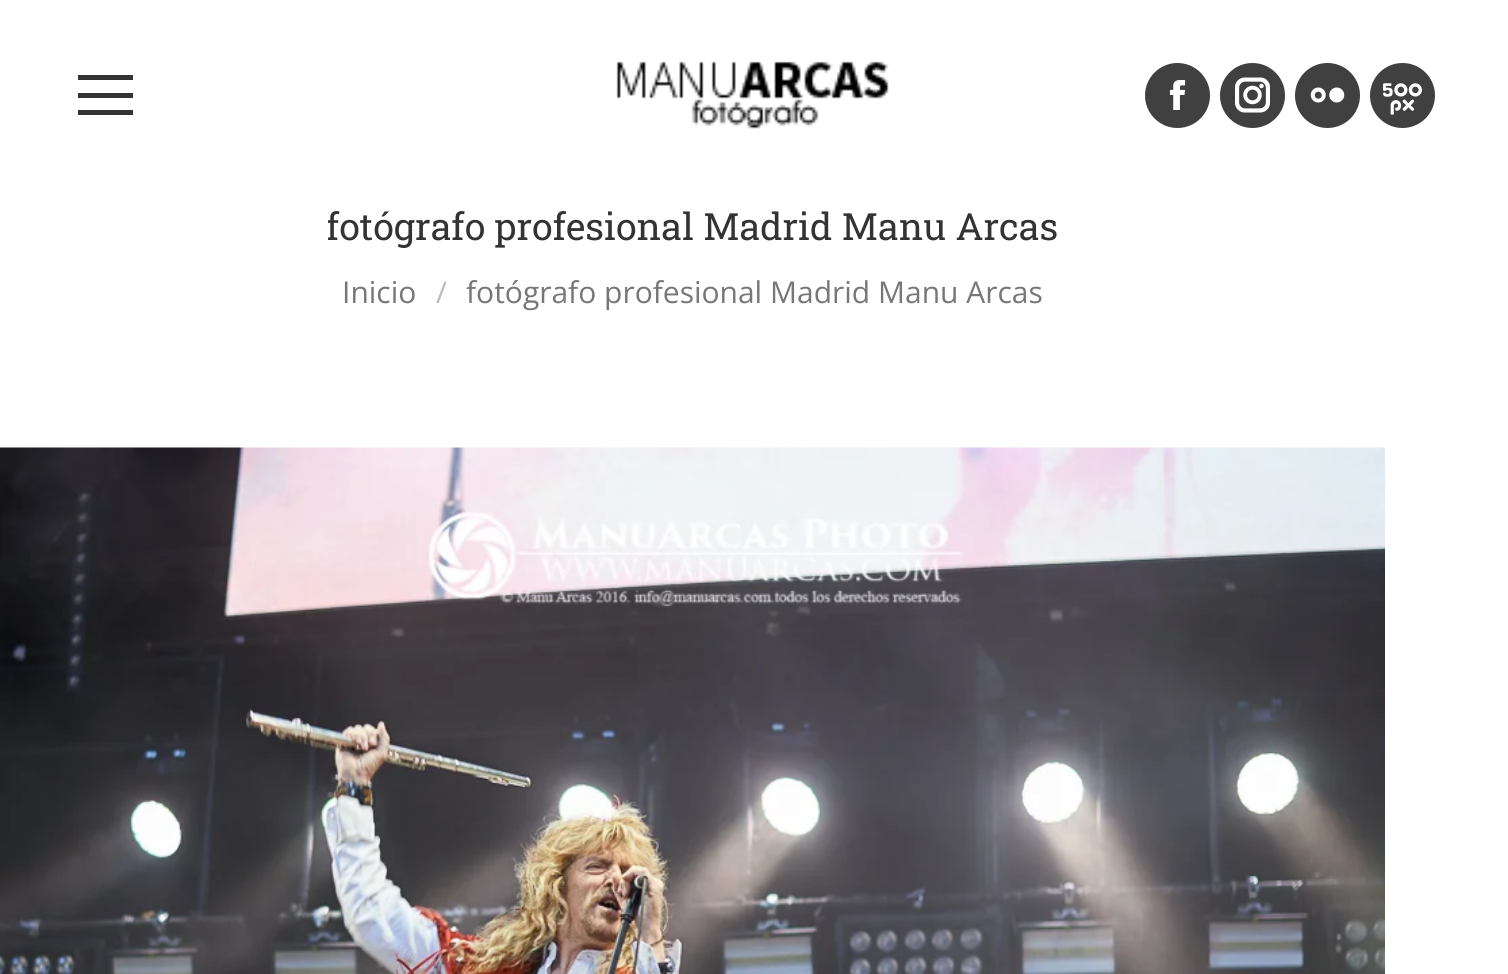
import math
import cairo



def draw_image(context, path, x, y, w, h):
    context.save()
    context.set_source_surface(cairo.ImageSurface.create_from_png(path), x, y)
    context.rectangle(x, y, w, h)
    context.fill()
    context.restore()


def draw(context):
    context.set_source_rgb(1, 1, 1)
    context.paint()
    context.set_source_rgb(51 / 255, 51 / 255, 51 / 255)
    context.rectangle(78, 75, 55, 5)
    context.fill()
    context.rectangle(78, 93, 55, 5)
    context.fill()
    context.rectangle(78, 110, 55, 5)
    context.fill()
    draw_image(context, "images/1.png", 616, 61, 273, 68)
    context.set_source_rgb(64 / 255, 64 / 255, 64 / 255)
    context.arc(1177.5, 95.5, 32.5, 0, 2 * math.pi)
    context.fill()
    draw_image(context, "images/2.png", 1169, 80, 17, 30)
    context.arc(1252.5, 95.5, 32.5, 0, 2 * math.pi)
    context.fill()
    draw_image(context, "images/3.png", 1235, 77, 35, 36)
    context.arc(1327.5, 95.5, 32.5, 0, 2 * math.pi)
    context.fill()
    draw_image(context, "images/4.png", 1310, 87, 35, 16)
    context.arc(1402.5, 95.5, 32.5, 0, 2 * math.pi)
    context.fill()
    draw_image(context, "images/5.png", 1383, 83, 39, 32)
    draw_image(context, "images/6.png", 0, 447, 1385, 527)
    context.save()
    context.rectangle(328, 195, 730, 63)
    context.clip()
    context.select_font_face("Roboto Slab")
    context.set_font_size(37.5)
    context.set_source_rgb(51 / 255, 51 / 255, 51 / 255)
    context.move_to(326, 240)
    context.show_text("fotógrafo profesional Madrid Manu Arcas")
    context.restore()
    context.select_font_face("Open Sans")
    context.set_font_size(30)
    context.set_source_rgb(119 / 255, 119 / 255, 119 / 255)
    context.move_to(342, 303)
    context.show_text("Inicio")
    context.set_source_rgb(187 / 255, 187 / 255, 187 / 255)
    context.move_to(436, 303)
    context.show_text("/")
    context.set_source_rgb(119 / 255, 119 / 255, 119 / 255)
    context.move_to(466, 303)
    context.show_text("fotógrafo profesional Madrid Manu Arcas")


surface = cairo.ImageSurface(cairo.Format.RGB24, 1508, 974)
context = cairo.Context(surface)
options = cairo.FontOptions()
options.set_hint_metrics(cairo.HintMetrics.OFF)
options.set_hint_style(cairo.HintStyle.NONE)
context.set_font_options(options)
context.set_miter_limit(4)
draw(context)
surface.write_to_png("out.png")
